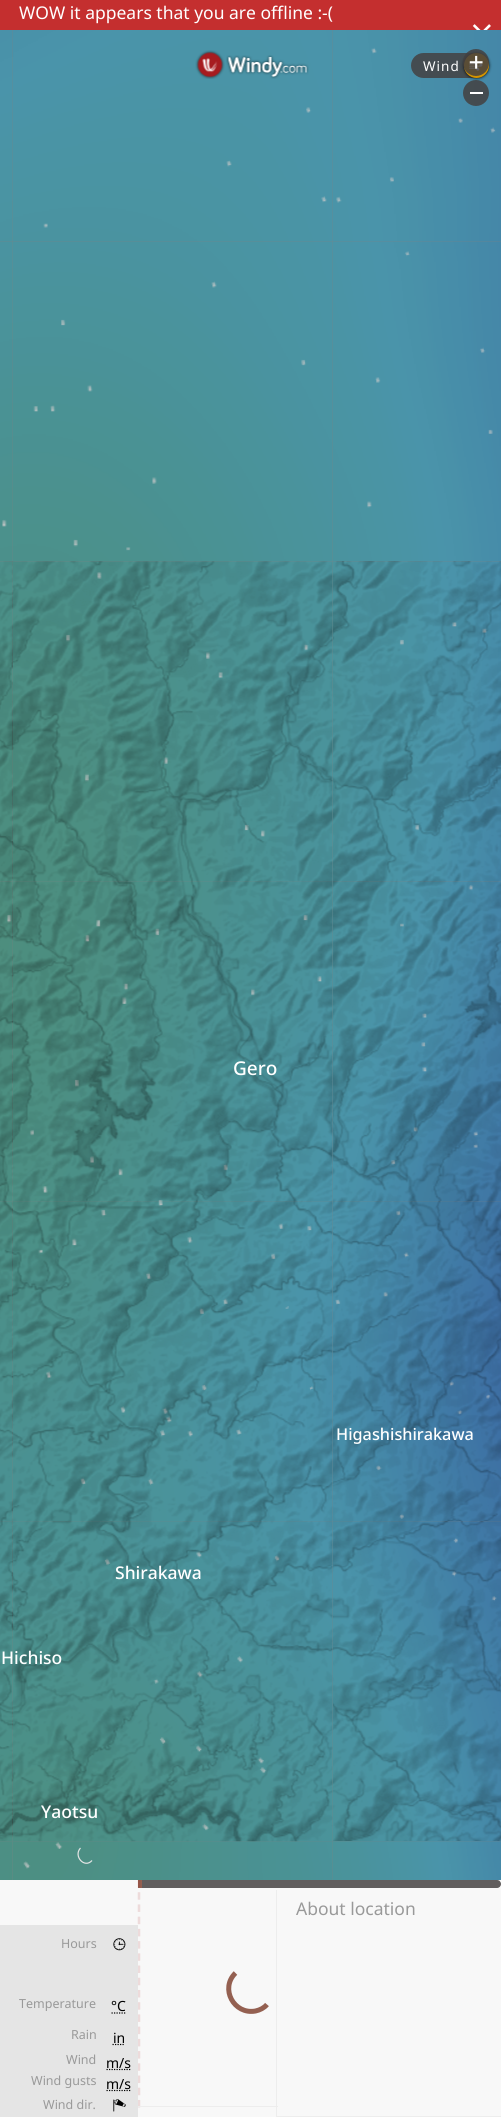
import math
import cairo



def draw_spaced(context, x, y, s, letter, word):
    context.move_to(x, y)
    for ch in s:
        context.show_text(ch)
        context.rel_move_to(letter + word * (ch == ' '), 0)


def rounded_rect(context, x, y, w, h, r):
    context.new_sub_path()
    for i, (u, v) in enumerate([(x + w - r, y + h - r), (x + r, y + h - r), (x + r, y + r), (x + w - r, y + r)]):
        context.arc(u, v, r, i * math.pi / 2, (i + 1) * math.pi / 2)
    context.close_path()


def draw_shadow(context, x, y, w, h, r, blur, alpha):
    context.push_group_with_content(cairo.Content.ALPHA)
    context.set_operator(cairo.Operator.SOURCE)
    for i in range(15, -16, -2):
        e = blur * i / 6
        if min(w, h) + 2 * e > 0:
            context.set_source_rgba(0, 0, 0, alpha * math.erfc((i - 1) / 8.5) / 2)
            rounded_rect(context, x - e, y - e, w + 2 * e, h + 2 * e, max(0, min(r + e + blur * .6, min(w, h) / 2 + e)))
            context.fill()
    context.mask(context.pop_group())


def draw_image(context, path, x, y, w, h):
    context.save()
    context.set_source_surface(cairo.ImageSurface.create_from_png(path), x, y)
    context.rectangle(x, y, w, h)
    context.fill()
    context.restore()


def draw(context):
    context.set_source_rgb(128 / 255, 128 / 255, 128 / 255)
    context.paint()
    context.set_source_rgb(196 / 255, 47 / 255, 47 / 255)
    context.rectangle(0, 0, 501, 30)
    context.fill()
    draw_image(context, "images/1.png", 472, 24, 19, 6)
    draw_image(context, "images/7.png", 12, 30, 321, 211)
    draw_image(context, "images/6.png", 0, 30, 13, 211)
    draw_image(context, "images/8.png", 332, 30, 169, 211)
    draw_image(context, "images/10.png", 12, 241, 321, 320)
    draw_image(context, "images/9.png", 0, 241, 13, 320)
    draw_image(context, "images/11.png", 332, 241, 169, 320)
    draw_image(context, "images/16.png", 12, 881, 321, 321)
    draw_image(context, "images/13.png", 12, 561, 321, 321)
    draw_image(context, "images/12.png", 0, 561, 13, 320)
    draw_image(context, "images/14.png", 332, 561, 169, 320)
    draw_image(context, "images/15.png", 0, 881, 13, 321)
    draw_image(context, "images/17.png", 332, 881, 169, 321)
    draw_image(context, "images/19.png", 12, 1201, 321, 321)
    draw_image(context, "images/18.png", 0, 1201, 13, 321)
    draw_image(context, "images/20.png", 332, 1201, 169, 321)
    draw_image(context, "images/22.png", 12, 1521, 321, 321)
    draw_image(context, "images/21.png", 0, 1521, 13, 321)
    draw_image(context, "images/23.png", 332, 1521, 169, 321)
    draw_image(context, "images/25.png", 12, 1841, 321, 39)
    draw_image(context, "images/24.png", 0, 1841, 13, 39)
    draw_image(context, "images/26.png", 332, 1841, 169, 39)
    draw_image(context, "images/27.png", 2, 47, 495, 1822)
    draw_image(context, "images/2.png", 195, 50, 30, 29)
    draw_image(context, "images/3.png", 226, 55, 83, 24)
    context.set_source_rgba(68 / 255, 65 / 255, 65 / 255, 0.84)
    rounded_rect(context, 411, 53, 78, 25, 12.5)
    context.fill()
    context.set_source_rgb(0, 0, 0)
    draw_shadow(context, 464, 53, 25, 25, 12.5, 1.5, 1)
    context.set_source_rgb(212 / 255, 149 / 255, 0)
    context.arc(476.5, 65.5, 12.5, 0, 2 * math.pi)
    context.fill()
    draw_image(context, "images/4.png", 469, 61, 14, 10)
    context.set_source_rgba(68 / 255, 65 / 255, 65 / 255, 0.84)
    rounded_rect(context, 463, 49, 26, 27, 13)
    context.fill()
    draw_image(context, "images/5.png", 469, 55, 14, 14)
    context.arc(476, 93, 13, 0, 2 * math.pi)
    context.fill()
    context.set_source_rgb(1, 1, 1)
    context.rectangle(470, 92, 13, 2)
    context.fill()
    draw_image(context, "images/32.png", 12, 881, 321, 321)
    draw_image(context, "images/29.png", 12, 561, 321, 321)
    draw_image(context, "images/28.png", 0, 561, 13, 320)
    draw_image(context, "images/30.png", 333, 561, 168, 320)
    draw_image(context, "images/31.png", 0, 881, 13, 320)
    draw_image(context, "images/33.png", 333, 881, 168, 320)
    draw_image(context, "images/35.png", 12, 1201, 321, 321)
    draw_image(context, "images/34.png", 0, 1201, 13, 320)
    draw_image(context, "images/36.png", 333, 1201, 168, 320)
    draw_image(context, "images/38.png", 12, 1521, 321, 321)
    draw_image(context, "images/37.png", 0, 1521, 13, 320)
    draw_image(context, "images/39.png", 333, 1521, 168, 320)
    context.new_path()
    context.move_to(92, 1860.5)
    context.curve_to(84.5, 1869, 73, 1856, 80.5, 1848)
    context.set_source_rgb(229 / 255, 229 / 255, 229 / 255)
    context.set_line_width(1.2)
    context.stroke()
    context.set_source_rgb(248 / 255, 248 / 255, 248 / 255)
    context.rectangle(0, 1880, 501, 237)
    context.fill()
    context.set_source_rgb(97 / 255, 94 / 255, 94 / 255)
    rounded_rect(context, 138, 1880, 363, 8, 4)
    context.fill()
    context.set_source_rgb(148 / 255, 96 / 255, 81 / 255)
    context.rectangle(138, 1880, 4, 8)
    context.fill()
    context.new_path()
    context.move_to(139, 1880)
    context.line_to(139, 2107.5)
    context.set_source_rgba(157 / 255, 3 / 255, 0, 0.12)
    context.set_line_width(2.5)
    context.set_dash([7.5, 4.72])
    context.stroke()
    context.set_source_rgb(237 / 255, 237 / 255, 237 / 255)
    context.rectangle(276, 2116, 225, 1)
    context.fill()
    context.rectangle(276, 1890, 1, 227)
    context.fill()
    context.rectangle(138, 2106, 140, 1)
    context.fill()
    context.set_source_rgb(229 / 255, 229 / 255, 229 / 255)
    context.rectangle(0, 1925, 138, 192)
    context.fill()
    draw_image(context, "images/40.png", 113, 1938, 13, 13)
    context.new_path()
    context.move_to(111.5, 2013)
    context.line_to(126, 2013)
    context.set_source_rgb(0, 0, 0)
    context.set_line_width(1.2)
    context.set_dash([1.25, 1.25])
    context.stroke()
    context.new_path()
    context.move_to(112.5, 2044.5)
    context.line_to(125, 2044.5)
    context.stroke()
    context.new_path()
    context.move_to(106.5, 2069.5)
    context.line_to(131, 2069.5)
    context.stroke()
    context.new_path()
    context.move_to(106.5, 2090.5)
    context.line_to(131, 2090.5)
    context.stroke()
    draw_image(context, "images/41.png", 113, 2099, 13, 13)
    context.new_path()
    context.move_to(267, 2004.5)
    context.curve_to(264, 2008, 260, 2010, 255.5, 2011)
    context.curve_to(234, 2015, 219.5, 1988.5, 235.5, 1973)
    context.set_source_rgb(148 / 255, 96 / 255, 81 / 255)
    context.set_line_width(5)
    context.set_dash([])
    context.stroke()
    context.select_font_face("Noto Sans")
    context.set_font_size(17.5)
    context.set_source_rgb(1, 1, 1)
    context.move_to(19, 19)
    context.show_text("WOW it appears that you are offline :-(")
    context.set_font_size(13.5)
    draw_spaced(context, 423, 71, "Wind", 1, 0)
    context.select_font_face("Noto Sans Medium")
    context.set_font_size(19)
    context.move_to(233, 1075)
    context.show_text("Gero")
    context.set_font_size(16.25)
    context.move_to(336, 1440)
    context.show_text("Higashishirakawa")
    context.set_font_size(17.5)
    context.move_to(115, 1579)
    context.show_text("Shirakawa")
    context.move_to(1, 1664)
    context.show_text("Hichiso")
    context.move_to(41, 1818)
    context.show_text("Yaotsu")
    context.select_font_face("Noto Sans")
    context.set_source_rgb(153 / 255, 153 / 255, 153 / 255)
    context.move_to(296, 1915)
    context.show_text("About location")
    context.set_font_size(12.5)
    context.move_to(61, 1948)
    context.show_text("Hours")
    context.move_to(19, 2008)
    context.show_text("Temperature")
    context.set_font_size(14)
    context.set_source_rgb(0, 0, 0)
    context.move_to(111, 2011)
    context.show_text("°C")
    context.set_font_size(12.5)
    context.set_source_rgb(153 / 255, 153 / 255, 153 / 255)
    context.move_to(71, 2039)
    context.show_text("Rain")
    context.set_font_size(14)
    context.set_source_rgb(0, 0, 0)
    context.move_to(113, 2043)
    context.show_text("in")
    context.set_font_size(12.5)
    context.set_source_rgb(153 / 255, 153 / 255, 153 / 255)
    context.move_to(66, 2064)
    context.show_text("Wind")
    context.set_font_size(14)
    context.set_source_rgb(0, 0, 0)
    context.move_to(106, 2068)
    context.show_text("m/s")
    context.set_font_size(12.5)
    context.set_source_rgb(153 / 255, 153 / 255, 153 / 255)
    context.move_to(31, 2085)
    context.show_text("Wind gusts")
    context.set_font_size(14)
    context.set_source_rgb(0, 0, 0)
    context.move_to(106, 2089)
    context.show_text("m/s")
    context.set_font_size(12.5)
    context.set_source_rgb(153 / 255, 153 / 255, 153 / 255)
    context.move_to(43, 2109)
    context.show_text("Wind dir.")


surface = cairo.ImageSurface(cairo.Format.RGB24, 501, 2117)
context = cairo.Context(surface)
options = cairo.FontOptions()
options.set_hint_metrics(cairo.HintMetrics.OFF)
options.set_hint_style(cairo.HintStyle.NONE)
context.set_font_options(options)
context.set_miter_limit(4)
draw(context)
surface.write_to_png("out.png")
